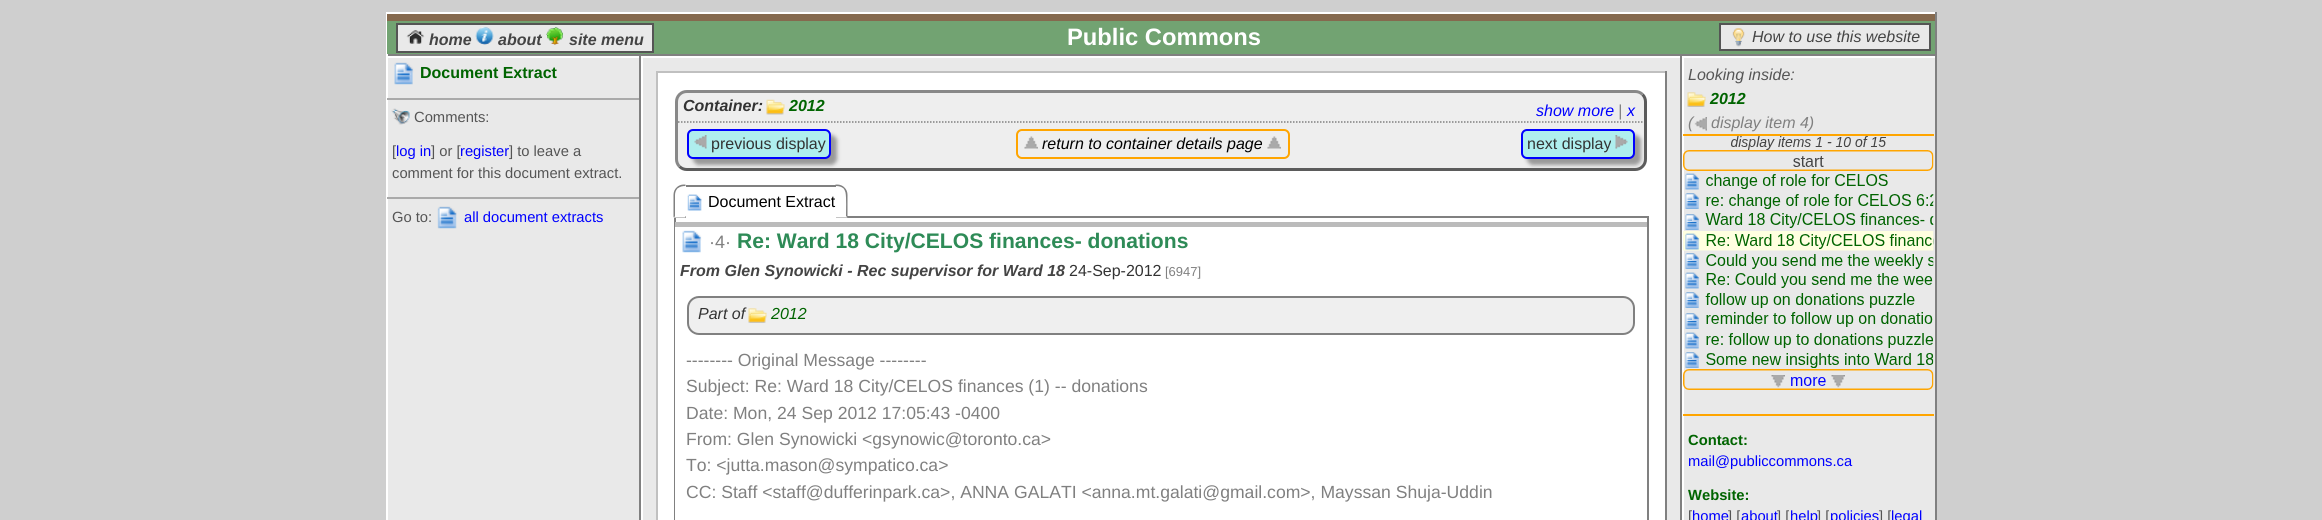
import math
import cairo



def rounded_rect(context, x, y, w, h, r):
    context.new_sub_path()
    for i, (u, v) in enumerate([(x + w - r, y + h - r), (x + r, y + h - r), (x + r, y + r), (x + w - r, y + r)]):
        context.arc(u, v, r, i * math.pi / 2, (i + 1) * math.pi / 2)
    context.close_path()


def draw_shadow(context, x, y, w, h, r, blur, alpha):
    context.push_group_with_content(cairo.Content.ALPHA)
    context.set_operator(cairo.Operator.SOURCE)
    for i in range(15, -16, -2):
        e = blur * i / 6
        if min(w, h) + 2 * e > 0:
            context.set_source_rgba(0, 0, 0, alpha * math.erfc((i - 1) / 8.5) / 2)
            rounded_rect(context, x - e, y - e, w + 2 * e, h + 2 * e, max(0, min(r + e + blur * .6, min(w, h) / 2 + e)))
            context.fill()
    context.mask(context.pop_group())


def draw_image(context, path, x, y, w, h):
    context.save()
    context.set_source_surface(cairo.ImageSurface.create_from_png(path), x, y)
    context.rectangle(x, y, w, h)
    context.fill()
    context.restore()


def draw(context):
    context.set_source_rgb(207 / 255, 207 / 255, 207 / 255)
    context.paint()
    context.set_source_rgb(1, 1, 1)
    context.rectangle(386, 12, 1551, 2)
    context.fill()
    context.set_source_rgb(128 / 255, 128 / 255, 128 / 255)
    context.rectangle(1935, 12, 2, 508)
    context.fill()
    context.rectangle(386, 54, 1551, 2)
    context.fill()
    context.set_source_rgb(1, 1, 1)
    context.rectangle(386, 12, 2, 508)
    context.fill()
    context.set_source_rgb(114 / 255, 163 / 255, 114 / 255)
    context.rectangle(387, 21, 1548, 33)
    context.fill()
    context.set_source_rgb(233 / 255, 233 / 255, 233 / 255)
    context.rectangle(397, 24, 256, 28)
    context.fill_preserve()
    context.set_source_rgb(85 / 255, 85 / 255, 85 / 255)
    context.stroke()
    draw_image(context, "images/1.png", 406, 30, 19, 14)
    draw_image(context, "images/2.png", 475, 27, 19, 18)
    draw_image(context, "images/3.png", 546, 27, 17, 18)
    context.set_source_rgb(133 / 255, 105 / 255, 78 / 255)
    context.rectangle(387, 14, 1548, 7)
    context.fill()
    context.set_source_rgb(233 / 255, 233 / 255, 233 / 255)
    context.rectangle(1720, 24, 210, 26)
    context.fill_preserve()
    context.set_source_rgb(85 / 255, 85 / 255, 85 / 255)
    context.stroke()
    draw_image(context, "images/4.png", 1732, 28, 13, 19)
    context.set_source_rgb(233 / 255, 233 / 255, 233 / 255)
    context.rectangle(388, 58, 1547, 462)
    context.fill()
    context.set_source_rgb(1, 1, 1)
    context.rectangle(387, 56, 252, 2)
    context.fill()
    draw_image(context, "images/5.png", 394, 62, 20, 23)
    context.set_source_rgb(170 / 255, 170 / 255, 170 / 255)
    context.rectangle(387, 98, 252, 2)
    context.fill()
    draw_image(context, "images/6.png", 391, 108, 19, 17)
    context.rectangle(387, 197, 252, 2)
    context.fill()
    draw_image(context, "images/7.png", 437, 206, 20, 23)
    context.set_source_rgb(1, 1, 1)
    context.rectangle(1682, 56, 2, 464)
    context.fill()
    context.set_source_rgb(128 / 255, 128 / 255, 128 / 255)
    context.rectangle(639, 56, 2, 464)
    context.fill()
    context.rectangle(1680, 56, 2, 464)
    context.fill()
    context.set_source_rgb(1, 1, 1)
    context.rectangle(641, 56, 2, 464)
    context.fill()
    context.rectangle(642, 56, 1038, 2)
    context.fill()
    context.rectangle(658, 73, 1007, 447)
    context.fill()
    context.set_source_rgb(192 / 255, 192 / 255, 192 / 255)
    context.rectangle(656, 71, 1011, 2)
    context.fill()
    context.set_source_rgb(128 / 255, 128 / 255, 128 / 255)
    context.rectangle(1665, 71, 2, 449)
    context.fill()
    context.set_source_rgb(192 / 255, 192 / 255, 192 / 255)
    context.rectangle(656, 71, 2, 449)
    context.fill()
    context.set_source_rgb(238 / 255, 238 / 255, 238 / 255)
    rounded_rect(context, 675, 90, 972, 81, 12)
    context.fill()
    context.new_path()
    context.move_to(1642.5, 94.5)
    context.curve_to(1644.5, 96.5, 1645.5, 99, 1645.5, 102)
    context.line_to(1645.5, 159)
    context.curve_to(1645.5, 162, 1644.5, 164.5, 1642.5, 166.5)
    context.curve_to(1640.5, 168.5, 1638, 169.5, 1635, 169.5)
    context.line_to(687, 169.5)
    context.curve_to(684, 169.5, 681.5, 168.5, 679.5, 166.5)
    context.set_source_rgb(91 / 255, 91 / 255, 91 / 255)
    context.set_line_width(3)
    context.stroke()
    context.new_path()
    context.move_to(679.5, 166.5)
    context.curve_to(677.5, 164.5, 676.5, 162, 676.5, 159)
    context.line_to(676.5, 102)
    context.curve_to(676.5, 99, 677.5, 96.5, 679.5, 94.5)
    context.curve_to(681.5, 92.5, 684, 91.5, 687, 91.5)
    context.line_to(1635, 91.5)
    context.curve_to(1638, 91.5, 1640.5, 92.5, 1642.5, 94.5)
    context.set_source_rgb(136 / 255, 136 / 255, 136 / 255)
    context.stroke()
    draw_image(context, "images/8.png", 766, 99, 19, 16)
    context.new_path()
    context.move_to(678, 122)
    context.line_to(1644, 122)
    context.set_source_rgb(128 / 255, 128 / 255, 128 / 255)
    context.set_line_width(1.5)
    context.set_dash([1.5, 1.5])
    context.stroke()
    context.set_source_rgb(153 / 255, 153 / 255, 153 / 255)
    draw_shadow(context, 693, 135, 144, 30, 6, 2, 1)
    context.set_source_rgb(175 / 255, 238 / 255, 238 / 255)
    rounded_rect(context, 688, 130, 142, 28, 5)
    context.fill_preserve()
    context.set_source_rgb(0, 0, 1)
    context.set_line_width(2)
    context.set_dash([])
    context.stroke()
    draw_image(context, "images/9.png", 694, 135, 13, 14)
    context.set_source_rgb(153 / 255, 153 / 255, 153 / 255)
    draw_shadow(context, 1527, 135, 114, 30, 6, 2, 1)
    context.set_source_rgb(175 / 255, 238 / 255, 238 / 255)
    rounded_rect(context, 1522, 130, 112, 28, 5)
    context.fill_preserve()
    context.set_source_rgb(0, 0, 1)
    context.stroke()
    draw_image(context, "images/10.png", 1615, 135, 13, 14)
    rounded_rect(context, 1017, 130, 272, 28, 5)
    context.set_source_rgb(1, 165 / 255, 0)
    context.stroke()
    draw_image(context, "images/11.png", 1024, 136, 14, 13)
    draw_image(context, "images/12.png", 1267, 136, 14, 13)
    context.set_source_rgb(128 / 255, 128 / 255, 128 / 255)
    context.new_path()
    context.move_to(684, 184.5)
    context.curve_to(681, 184.5, 678.5, 185.5, 676.5, 187.5)
    context.line_to(677.5, 188.5)
    context.curve_to(680, 186.5, 682.5, 186, 685.5, 186)
    context.line_to(685.5, 184.5)
    context.close_path()
    context.fill()
    context.rectangle(675, 217, 973, 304)
    context.stroke()
    context.set_source_rgb(1, 1, 1)
    context.new_path()
    context.move_to(685.5, 217.5)
    context.line_to(685.5, 216)
    context.line_to(675, 216)
    context.line_to(673.5, 217.5)
    context.close_path()
    context.fill()
    context.set_source_rgb(128 / 255, 128 / 255, 128 / 255)
    context.new_path()
    context.move_to(673.5, 217.5)
    context.line_to(675, 216)
    context.line_to(675, 195)
    context.curve_to(675, 192.5, 676, 190, 677.5, 188.5)
    context.line_to(676.5, 187.5)
    context.curve_to(674.5, 189.5, 673.5, 192, 673.5, 195)
    context.close_path()
    context.fill()
    context.rectangle(686, 185, 150, 2)
    context.fill()
    context.set_source_rgb(1, 1, 1)
    context.rectangle(686, 216, 150, 2)
    context.fill()
    draw_image(context, "images/13.png", 687, 194, 15, 17)
    context.set_source_rgb(128 / 255, 128 / 255, 128 / 255)
    context.new_path()
    context.move_to(835.5, 184.5)
    context.line_to(835.5, 186)
    context.curve_to(839.5, 186, 842, 187, 843.5, 188.5)
    context.line_to(844.5, 187.5)
    context.curve_to(842.5, 185.5, 840, 184.5, 837, 184.5)
    context.close_path()
    context.fill()
    context.new_path()
    context.move_to(846, 216)
    context.curve_to(846, 211, 846.5, 197.5, 845.5, 192.5)
    context.curve_to(845, 191, 844.5, 189.5, 843.5, 188.5)
    context.line_to(844.5, 187.5)
    context.curve_to(846.5, 189.5, 847.5, 192, 847.5, 195)
    context.line_to(847.5, 217.5)
    context.close_path()
    context.fill()
    context.set_source_rgb(1, 1, 1)
    context.new_path()
    context.move_to(847.5, 217.5)
    context.line_to(846, 216)
    context.line_to(835.5, 216)
    context.line_to(835.5, 217.5)
    context.close_path()
    context.fill()
    context.rectangle(675, 227, 1, 293)
    context.fill()
    context.set_source_rgb(187 / 255, 187 / 255, 187 / 255)
    context.rectangle(675, 222, 972, 5)
    context.fill()
    draw_image(context, "images/14.png", 682, 230, 20, 23)
    context.set_source_rgb(239 / 255, 239 / 255, 239 / 255)
    rounded_rect(context, 688, 297, 946, 37, 11)
    context.fill_preserve()
    context.set_source_rgb(128 / 255, 128 / 255, 128 / 255)
    context.stroke()
    draw_image(context, "images/15.png", 748, 308, 19, 15)
    context.set_source_rgb(1, 1, 1)
    context.rectangle(1683, 56, 252, 2)
    context.fill()
    draw_image(context, "images/16.png", 1687, 92, 19, 15)
    context.set_source_rgb(1, 165 / 255, 0)
    context.rectangle(1683, 134, 251, 2)
    context.fill()
    draw_image(context, "images/18.png", 1683, 136, 251, 254)
    context.rectangle(1683, 414, 251, 2)
    context.fill()
    context.select_font_face("Liberation Sans", cairo.FontSlant.ITALIC, cairo.FontWeight.BOLD)
    context.set_font_size(16)
    context.set_source_rgb(68 / 255, 68 / 255, 68 / 255)
    context.move_to(429, 45)
    context.show_text("home")
    context.move_to(498, 45)
    context.show_text("about")
    context.move_to(569, 45)
    context.show_text("site menu")
    context.select_font_face("Liberation Sans", cairo.FontSlant.NORMAL, cairo.FontWeight.BOLD)
    context.set_font_size(23.75)
    context.set_source_rgb(1, 1, 1)
    context.move_to(1067, 45)
    context.show_text("Public Commons")
    context.select_font_face("Liberation Sans", cairo.FontSlant.ITALIC)
    context.set_font_size(16)
    context.set_source_rgb(68 / 255, 68 / 255, 68 / 255)
    context.move_to(1752, 42)
    context.show_text("How to use this website")
    context.select_font_face("Liberation Sans", cairo.FontSlant.NORMAL, cairo.FontWeight.BOLD)
    context.set_source_rgb(0, 100 / 255, 0)
    context.move_to(420, 78)
    context.show_text("Document Extract")
    context.select_font_face("Liberation Sans")
    context.set_font_size(14.75)
    context.set_source_rgb(85 / 255, 85 / 255, 85 / 255)
    context.move_to(414, 122)
    context.show_text("Comments:")
    context.move_to(392, 156)
    context.show_text("[")
    context.set_source_rgb(0, 0, 1)
    context.move_to(396, 156)
    context.show_text("log in")
    context.set_source_rgb(85 / 255, 85 / 255, 85 / 255)
    context.move_to(431, 156)
    context.show_text("] or [")
    context.set_source_rgb(0, 0, 1)
    context.move_to(460, 156)
    context.show_text("register")
    context.set_source_rgb(85 / 255, 85 / 255, 85 / 255)
    context.move_to(509, 156)
    context.show_text("] to leave a")
    context.move_to(392, 178)
    context.show_text("comment for this document extract.")
    context.move_to(392, 222)
    context.show_text("Go to:")
    context.set_source_rgb(0, 0, 1)
    context.move_to(464, 222)
    context.show_text("all document extracts")
    context.select_font_face("Liberation Sans", cairo.FontSlant.ITALIC, cairo.FontWeight.BOLD)
    context.set_font_size(16)
    context.set_source_rgb(51 / 255, 51 / 255, 51 / 255)
    context.move_to(683, 111)
    context.show_text("Container:")
    context.set_source_rgb(0, 100 / 255, 0)
    context.move_to(789, 111)
    context.show_text("2012")
    context.select_font_face("Liberation Sans", cairo.FontSlant.ITALIC)
    context.set_source_rgb(0, 0, 1)
    context.move_to(1536, 116)
    context.show_text("show more")
    context.set_source_rgb(128 / 255, 128 / 255, 128 / 255)
    context.move_to(1618, 116)
    context.show_text("|")
    context.set_source_rgb(0, 0, 1)
    context.move_to(1627, 116)
    context.show_text("x")
    context.select_font_face("Liberation Sans")
    context.set_source_rgb(51 / 255, 51 / 255, 51 / 255)
    context.move_to(711, 149)
    context.show_text("previous display")
    context.move_to(1527, 149)
    context.show_text("next display")
    context.select_font_face("Liberation Sans", cairo.FontSlant.ITALIC)
    context.set_source_rgb(0, 0, 0)
    context.move_to(1042, 149)
    context.show_text("return to container details page")
    context.select_font_face("Liberation Sans")
    context.move_to(708, 207)
    context.show_text("Document Extract")
    context.set_font_size(18)
    context.set_source_rgb(128 / 255, 128 / 255, 128 / 255)
    context.move_to(709, 248)
    context.show_text("·4·")
    context.select_font_face("Liberation Sans", cairo.FontSlant.NORMAL, cairo.FontWeight.BOLD)
    context.set_font_size(21.1)
    context.set_source_rgb(46 / 255, 139 / 255, 87 / 255)
    context.move_to(737, 248)
    context.show_text("Re: Ward 18 City/CELOS finances- donations")
    context.select_font_face("Liberation Sans", cairo.FontSlant.ITALIC, cairo.FontWeight.BOLD)
    context.set_font_size(16)
    context.set_source_rgb(68 / 255, 68 / 255, 68 / 255)
    context.move_to(680, 276)
    context.show_text("From Glen Synowicki - Rec supervisor for Ward 18")
    context.select_font_face("Liberation Sans")
    context.set_source_rgb(51 / 255, 51 / 255, 51 / 255)
    context.move_to(1069, 276)
    context.show_text("24-Sep-2012")
    context.set_font_size(13)
    context.set_source_rgb(128 / 255, 128 / 255, 128 / 255)
    context.move_to(1165, 276)
    context.show_text("[6947]")
    context.select_font_face("Liberation Sans", cairo.FontSlant.ITALIC)
    context.set_font_size(16)
    context.set_source_rgb(51 / 255, 51 / 255, 51 / 255)
    context.move_to(698, 319)
    context.show_text("Part of")
    context.set_source_rgb(0, 100 / 255, 0)
    context.move_to(771, 319)
    context.show_text("2012")
    context.select_font_face("Liberation Sans")
    context.set_font_size(17.6)
    context.set_source_rgb(128 / 255, 128 / 255, 128 / 255)
    context.move_to(686, 366)
    context.show_text("-------- Original Message --------")
    context.move_to(686, 392)
    context.show_text("Subject: Re: Ward 18 City/CELOS finances (1) -- donations")
    context.move_to(686, 419)
    context.show_text("Date: Mon, 24 Sep 2012 17:05:43 -0400")
    context.move_to(686, 445)
    context.show_text("From: Glen Synowicki <gsynowic@toronto.ca>")
    context.move_to(686, 471)
    context.show_text("To: <jutta.mason@sympatico.ca>")
    context.move_to(686, 498)
    context.show_text("CC: Staff <staff@dufferinpark.ca>, ANNA GALATI <anna.mt.galati@gmail.com>, Mayssan Shuja-Uddin")
    context.select_font_face("Liberation Sans", cairo.FontSlant.ITALIC)
    context.set_font_size(16)
    context.set_source_rgb(85 / 255, 85 / 255, 85 / 255)
    context.move_to(1688, 80)
    context.show_text("Looking inside:")
    context.select_font_face("Liberation Sans", cairo.FontSlant.ITALIC, cairo.FontWeight.BOLD)
    context.set_source_rgb(0, 100 / 255, 0)
    context.move_to(1710, 104)
    context.show_text("2012")
    context.select_font_face("Liberation Sans", cairo.FontSlant.ITALIC)
    context.set_source_rgb(128 / 255, 128 / 255, 128 / 255)
    context.move_to(1688, 128)
    context.show_text("(")
    draw_image(context, "images/17.png", 1694, 117, 13, 14)
    context.move_to(1711, 128)
    context.show_text("display item 4)")
    context.select_font_face("Liberation Sans", cairo.FontSlant.NORMAL, cairo.FontWeight.BOLD)
    context.set_font_size(14.75)
    context.set_source_rgb(0, 100 / 255, 0)
    context.move_to(1688, 445)
    context.show_text("Contact:")
    context.select_font_face("Liberation Sans")
    context.set_source_rgb(0, 0, 1)
    context.move_to(1688, 466)
    context.show_text("mail@publiccommons.ca")
    context.select_font_face("Liberation Sans", cairo.FontSlant.NORMAL, cairo.FontWeight.BOLD)
    context.set_source_rgb(0, 100 / 255, 0)
    context.move_to(1688, 500)
    context.show_text("Website:")
    context.select_font_face("Liberation Sans")
    context.set_source_rgb(85 / 255, 85 / 255, 85 / 255)
    context.move_to(1688, 521)
    context.show_text("[")
    context.set_source_rgb(0, 0, 1)
    context.move_to(1692, 521)
    context.show_text("home")
    context.set_source_rgb(85 / 255, 85 / 255, 85 / 255)
    context.move_to(1728, 521)
    context.show_text("] [")
    context.set_source_rgb(0, 0, 1)
    context.move_to(1741, 521)
    context.show_text("about")
    context.set_source_rgb(85 / 255, 85 / 255, 85 / 255)
    context.move_to(1777, 521)
    context.show_text("] [")
    context.set_source_rgb(0, 0, 1)
    context.move_to(1790, 521)
    context.show_text("help")
    context.set_source_rgb(85 / 255, 85 / 255, 85 / 255)
    context.move_to(1817, 521)
    context.show_text("] [")
    context.set_source_rgb(0, 0, 1)
    context.move_to(1830, 521)
    context.show_text("policies")
    context.set_source_rgb(85 / 255, 85 / 255, 85 / 255)
    context.move_to(1879, 521)
    context.show_text("] [")
    context.set_source_rgb(0, 0, 1)
    context.move_to(1891, 521)
    context.show_text("legal")


surface = cairo.ImageSurface(cairo.Format.RGB24, 2322, 520)
context = cairo.Context(surface)
options = cairo.FontOptions()
options.set_hint_metrics(cairo.HintMetrics.OFF)
options.set_hint_style(cairo.HintStyle.NONE)
context.set_font_options(options)
context.set_miter_limit(4)
draw(context)
surface.write_to_png("out.png")
